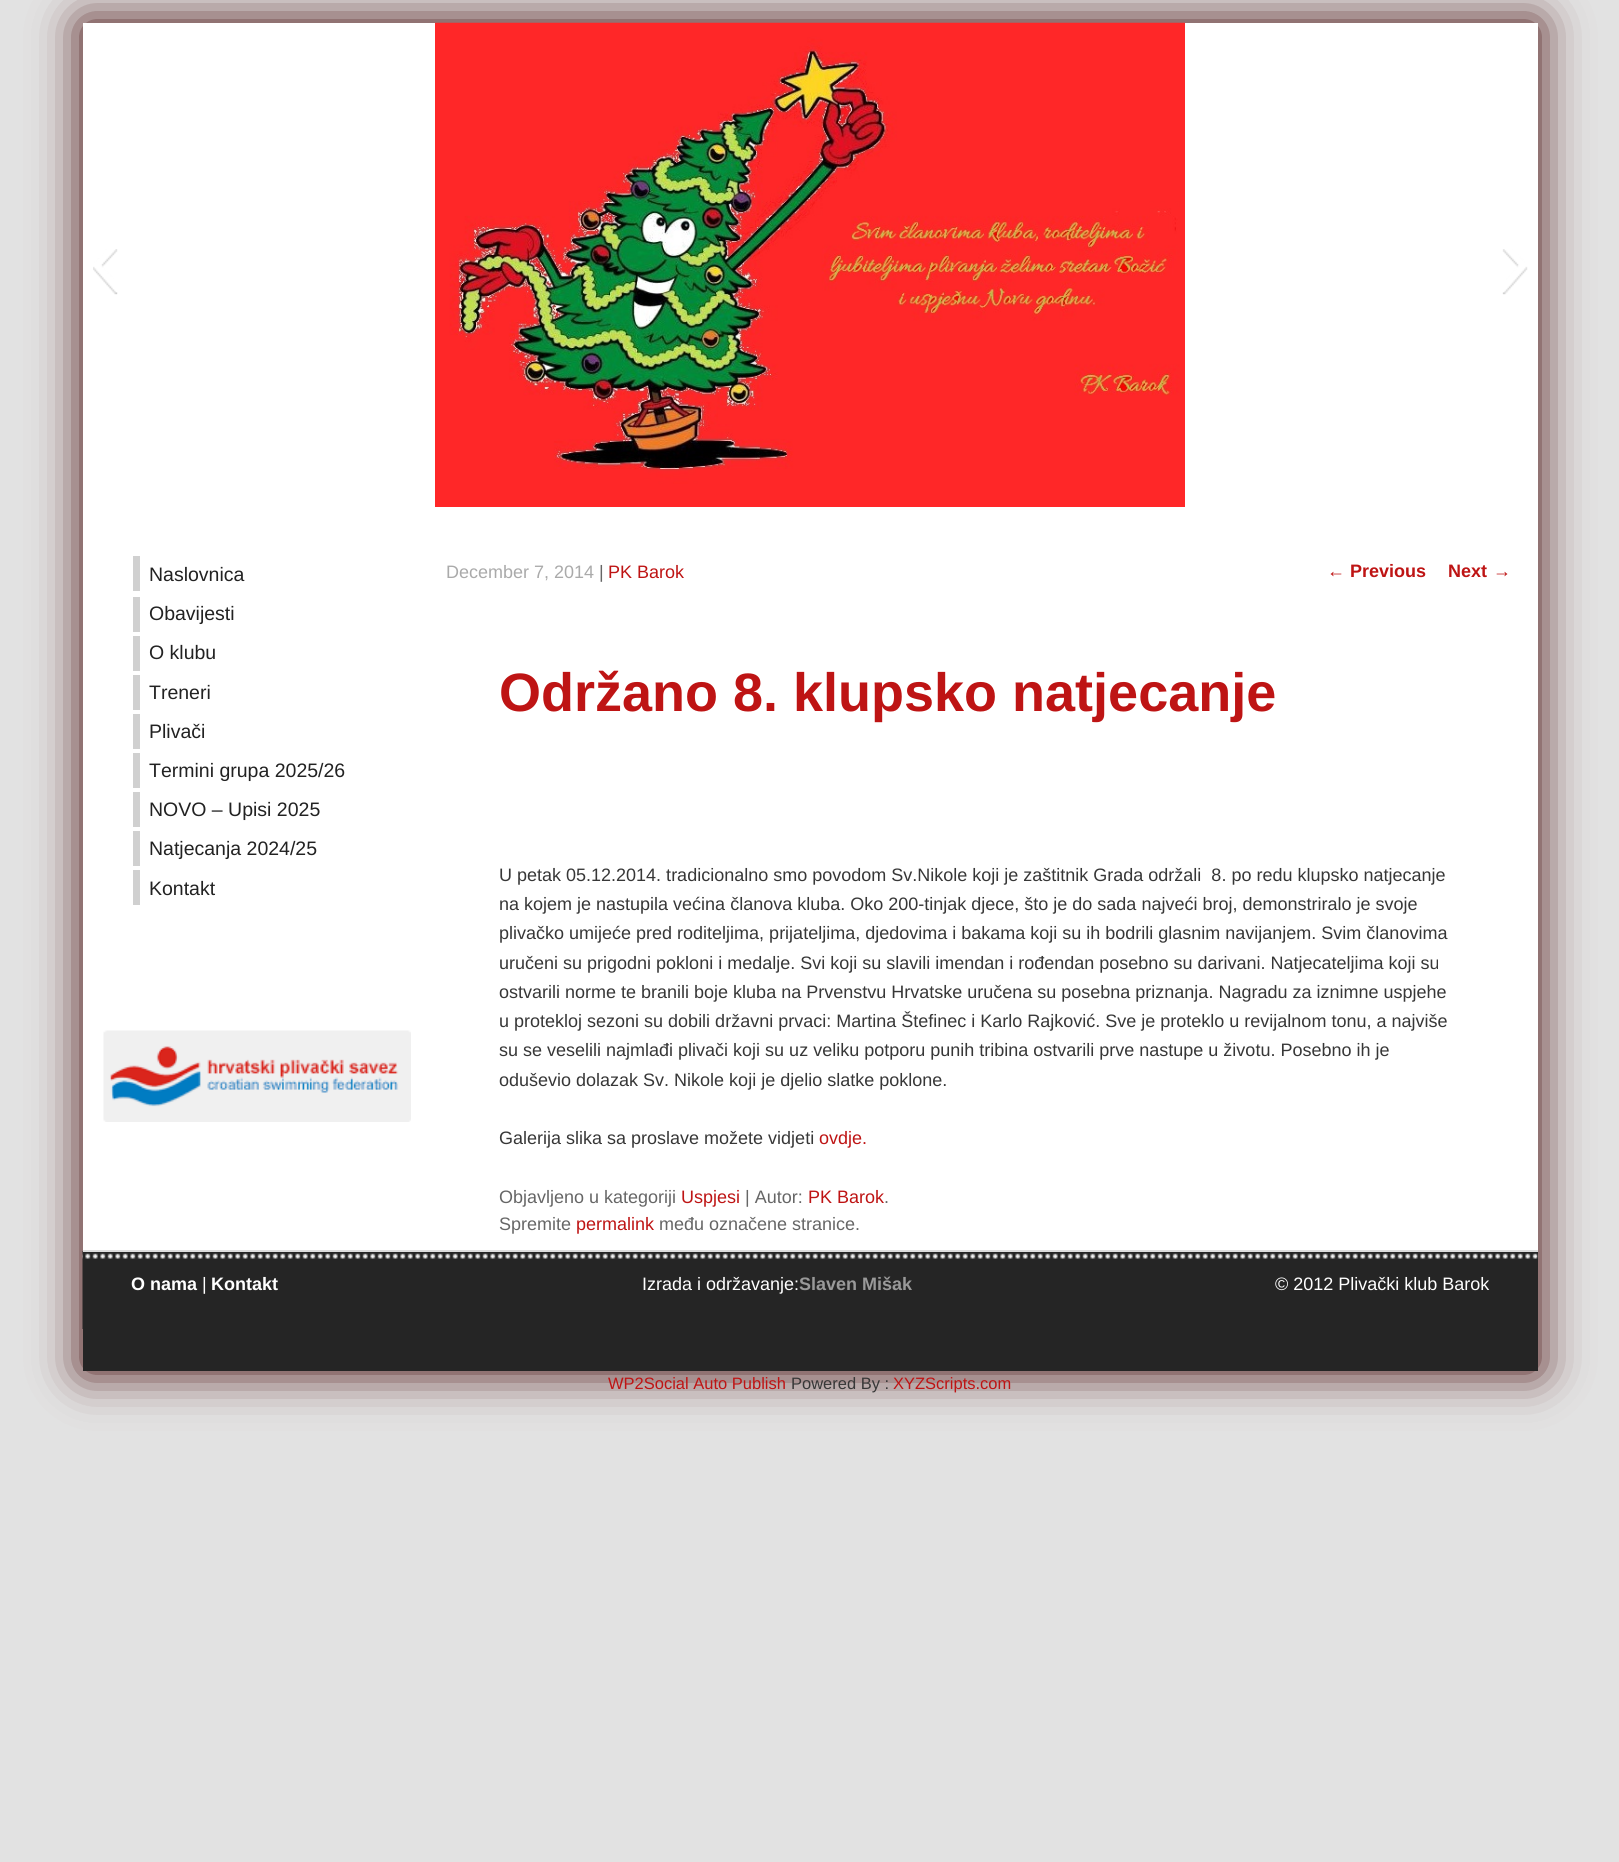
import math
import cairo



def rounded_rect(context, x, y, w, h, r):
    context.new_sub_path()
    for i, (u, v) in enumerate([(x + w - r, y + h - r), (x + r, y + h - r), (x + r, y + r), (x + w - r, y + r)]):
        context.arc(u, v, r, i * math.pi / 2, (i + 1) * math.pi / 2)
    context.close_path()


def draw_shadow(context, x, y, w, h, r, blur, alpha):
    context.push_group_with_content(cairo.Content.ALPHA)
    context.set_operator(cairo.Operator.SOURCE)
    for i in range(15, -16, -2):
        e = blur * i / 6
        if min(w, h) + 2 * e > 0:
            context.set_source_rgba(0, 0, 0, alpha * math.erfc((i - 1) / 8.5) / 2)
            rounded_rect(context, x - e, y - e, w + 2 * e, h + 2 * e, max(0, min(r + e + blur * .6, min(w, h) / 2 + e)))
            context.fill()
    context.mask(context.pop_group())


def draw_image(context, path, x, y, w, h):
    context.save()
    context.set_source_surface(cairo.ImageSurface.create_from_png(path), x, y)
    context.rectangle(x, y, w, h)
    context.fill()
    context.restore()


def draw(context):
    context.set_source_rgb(226 / 255, 226 / 255, 226 / 255)
    context.paint()
    context.set_source_rgb(64 / 255, 3 / 255, 3 / 255)
    draw_shadow(context, 83, 23, 1455, 1348, 0, 24, 1)
    context.set_source_rgb(1, 1, 1)
    context.rectangle(83, 23, 1455, 1227)
    context.fill()
    draw_image(context, "images/1.png", 93, 249, 25, 46)
    draw_image(context, "images/2.png", 435, 22, 750, 485)
    draw_image(context, "images/3.png", 1502, 249, 26, 46)
    context.set_source_rgb(208 / 255, 208 / 255, 208 / 255)
    context.rectangle(133, 556, 7, 35)
    context.fill()
    context.rectangle(133, 597, 7, 35)
    context.fill()
    context.rectangle(133, 636, 7, 35)
    context.fill()
    context.rectangle(133, 675, 7, 35)
    context.fill()
    context.rectangle(133, 714, 7, 35)
    context.fill()
    context.rectangle(133, 753, 7, 35)
    context.fill()
    context.rectangle(133, 792, 7, 35)
    context.fill()
    context.rectangle(133, 831, 7, 35)
    context.fill()
    context.rectangle(133, 870, 7, 35)
    context.fill()
    draw_image(context, "images/4.png", 103, 1030, 308, 92)
    context.set_source_rgb(37 / 255, 37 / 255, 37 / 255)
    context.rectangle(83, 1252, 1455, 119)
    context.fill()
    draw_image(context, "images/5.png", 82, 1251, 1456, 78)
    context.set_source_rgb(221 / 255, 221 / 255, 221 / 255)
    context.rectangle(83, 1250, 1455, 2)
    context.fill()
    context.select_font_face("Liberation Sans")
    context.set_font_size(19.5)
    context.set_source_rgb(34 / 255, 34 / 255, 34 / 255)
    context.move_to(149, 581)
    context.show_text("Naslovnica")
    context.move_to(149, 620)
    context.show_text("Obavijesti")
    context.move_to(149, 659)
    context.show_text("O klubu")
    context.move_to(149, 699)
    context.show_text("Treneri")
    context.move_to(149, 738)
    context.show_text("Plivači")
    context.move_to(149, 777)
    context.show_text("Termini grupa 2025/26")
    context.move_to(149, 816)
    context.show_text("NOVO – Upisi 2025")
    context.move_to(149, 855)
    context.show_text("Natjecanja 2024/25")
    context.move_to(149, 895)
    context.show_text("Kontakt")
    context.set_font_size(18)
    context.set_source_rgb(190 / 255, 20 / 255, 20 / 255)
    context.move_to(1327, 577)
    context.show_text("←")
    context.select_font_face("Liberation Sans", cairo.FontSlant.NORMAL, cairo.FontWeight.BOLD)
    context.move_to(1350, 577)
    context.show_text("Previous")
    context.move_to(1448, 577)
    context.show_text("Next")
    context.select_font_face("Liberation Sans")
    context.move_to(1493, 577)
    context.show_text("→")
    context.set_source_rgb(170 / 255, 170 / 255, 170 / 255)
    context.move_to(446, 578)
    context.show_text("December 7, 2014")
    context.set_source_rgb(102 / 255, 102 / 255, 102 / 255)
    context.move_to(599, 578)
    context.show_text("|")
    context.set_source_rgb(190 / 255, 20 / 255, 20 / 255)
    context.move_to(608, 578)
    context.show_text("PK Barok")
    context.select_font_face("Liberation Sans", cairo.FontSlant.NORMAL, cairo.FontWeight.BOLD)
    context.set_font_size(54)
    context.move_to(499, 711)
    context.show_text("Održano 8. klupsko natjecanje")
    context.select_font_face("Liberation Sans")
    context.set_font_size(18)
    context.set_source_rgb(55 / 255, 55 / 255, 55 / 255)
    context.move_to(499, 881)
    context.show_text("U petak 05.12.2014. tradicionalno smo povodom Sv.Nikole koji je zaštitnik Grada održali  8. po redu klupsko natjecanje")
    context.move_to(499, 910)
    context.show_text("na kojem je nastupila većina članova kluba. Oko 200-tinjak djece, što je do sada najveći broj, demonstriralo je svoje")
    context.move_to(499, 939)
    context.show_text("plivačko umijeće pred roditeljima, prijateljima, djedovima i bakama koji su ih bodrili glasnim navijanjem. Svim članovima")
    context.move_to(499, 969)
    context.show_text("uručeni su prigodni pokloni i medalje. Svi koji su slavili imendan i rođendan posebno su darivani. Natjecateljima koji su")
    context.move_to(499, 998)
    context.show_text("ostvarili norme te branili boje kluba na Prvenstvu Hrvatske uručena su posebna priznanja. Nagradu za iznimne uspjehe")
    context.move_to(499, 1027)
    context.show_text("u protekloj sezoni su dobili državni prvaci: Martina Štefinec i Karlo Rajković. Sve je proteklo u revijalnom tonu, a najviše")
    context.move_to(499, 1056)
    context.show_text("su se veselili najmlađi plivači koji su uz veliku potporu punih tribina ostvarili prve nastupe u životu. Posebno ih je")
    context.move_to(499, 1086)
    context.show_text("oduševio dolazak Sv. Nikole koji je djelio slatke poklone.")
    context.move_to(499, 1144)
    context.show_text("Galerija slika sa proslave možete vidjeti")
    context.set_source_rgb(190 / 255, 20 / 255, 20 / 255)
    context.move_to(819, 1144)
    context.show_text("ovdje.")
    context.set_source_rgb(102 / 255, 102 / 255, 102 / 255)
    context.move_to(499, 1203)
    context.show_text("Objavljeno u kategoriji")
    context.set_source_rgb(190 / 255, 20 / 255, 20 / 255)
    context.move_to(681, 1203)
    context.show_text("Uspjesi")
    context.set_source_rgb(102 / 255, 102 / 255, 102 / 255)
    context.move_to(745, 1203)
    context.show_text("| Autor:")
    context.set_source_rgb(190 / 255, 20 / 255, 20 / 255)
    context.move_to(808, 1203)
    context.show_text("PK Barok")
    context.set_source_rgb(102 / 255, 102 / 255, 102 / 255)
    context.move_to(884, 1203)
    context.show_text(".")
    context.move_to(499, 1230)
    context.show_text("Spremite")
    context.set_source_rgb(190 / 255, 20 / 255, 20 / 255)
    context.move_to(576, 1230)
    context.show_text("permalink")
    context.set_source_rgb(102 / 255, 102 / 255, 102 / 255)
    context.move_to(659, 1230)
    context.show_text("među označene stranice.")
    context.select_font_face("Liberation Sans", cairo.FontSlant.NORMAL, cairo.FontWeight.BOLD)
    context.set_source_rgb(1, 1, 1)
    context.move_to(131, 1290)
    context.show_text("O nama")
    context.select_font_face("Liberation Sans")
    context.move_to(202, 1290)
    context.show_text("|")
    context.select_font_face("Liberation Sans", cairo.FontSlant.NORMAL, cairo.FontWeight.BOLD)
    context.move_to(211, 1290)
    context.show_text("Kontakt")
    context.select_font_face("Liberation Sans")
    context.move_to(642, 1290)
    context.show_text("Izrada i održavanje:")
    context.select_font_face("Liberation Sans", cairo.FontSlant.NORMAL, cairo.FontWeight.BOLD)
    context.set_source_rgb(153 / 255, 153 / 255, 153 / 255)
    context.move_to(799, 1290)
    context.show_text("Slaven Mišak")
    context.select_font_face("Liberation Sans")
    context.set_source_rgb(1, 1, 1)
    context.move_to(1275, 1290)
    context.show_text("© 2012 Plivački klub Barok")
    context.set_font_size(16.5)
    context.set_source_rgb(190 / 255, 20 / 255, 20 / 255)
    context.move_to(608, 1389)
    context.show_text("WP2Social Auto Publish")
    context.set_source_rgb(55 / 255, 55 / 255, 55 / 255)
    context.move_to(791, 1389)
    context.show_text("Powered By :")
    context.set_source_rgb(190 / 255, 20 / 255, 20 / 255)
    context.move_to(893, 1389)
    context.show_text("XYZScripts.com")


surface = cairo.ImageSurface(cairo.Format.RGB24, 1619, 1862)
context = cairo.Context(surface)
options = cairo.FontOptions()
options.set_hint_metrics(cairo.HintMetrics.OFF)
options.set_hint_style(cairo.HintStyle.NONE)
context.set_font_options(options)
context.set_miter_limit(4)
draw(context)
surface.write_to_png("out.png")
